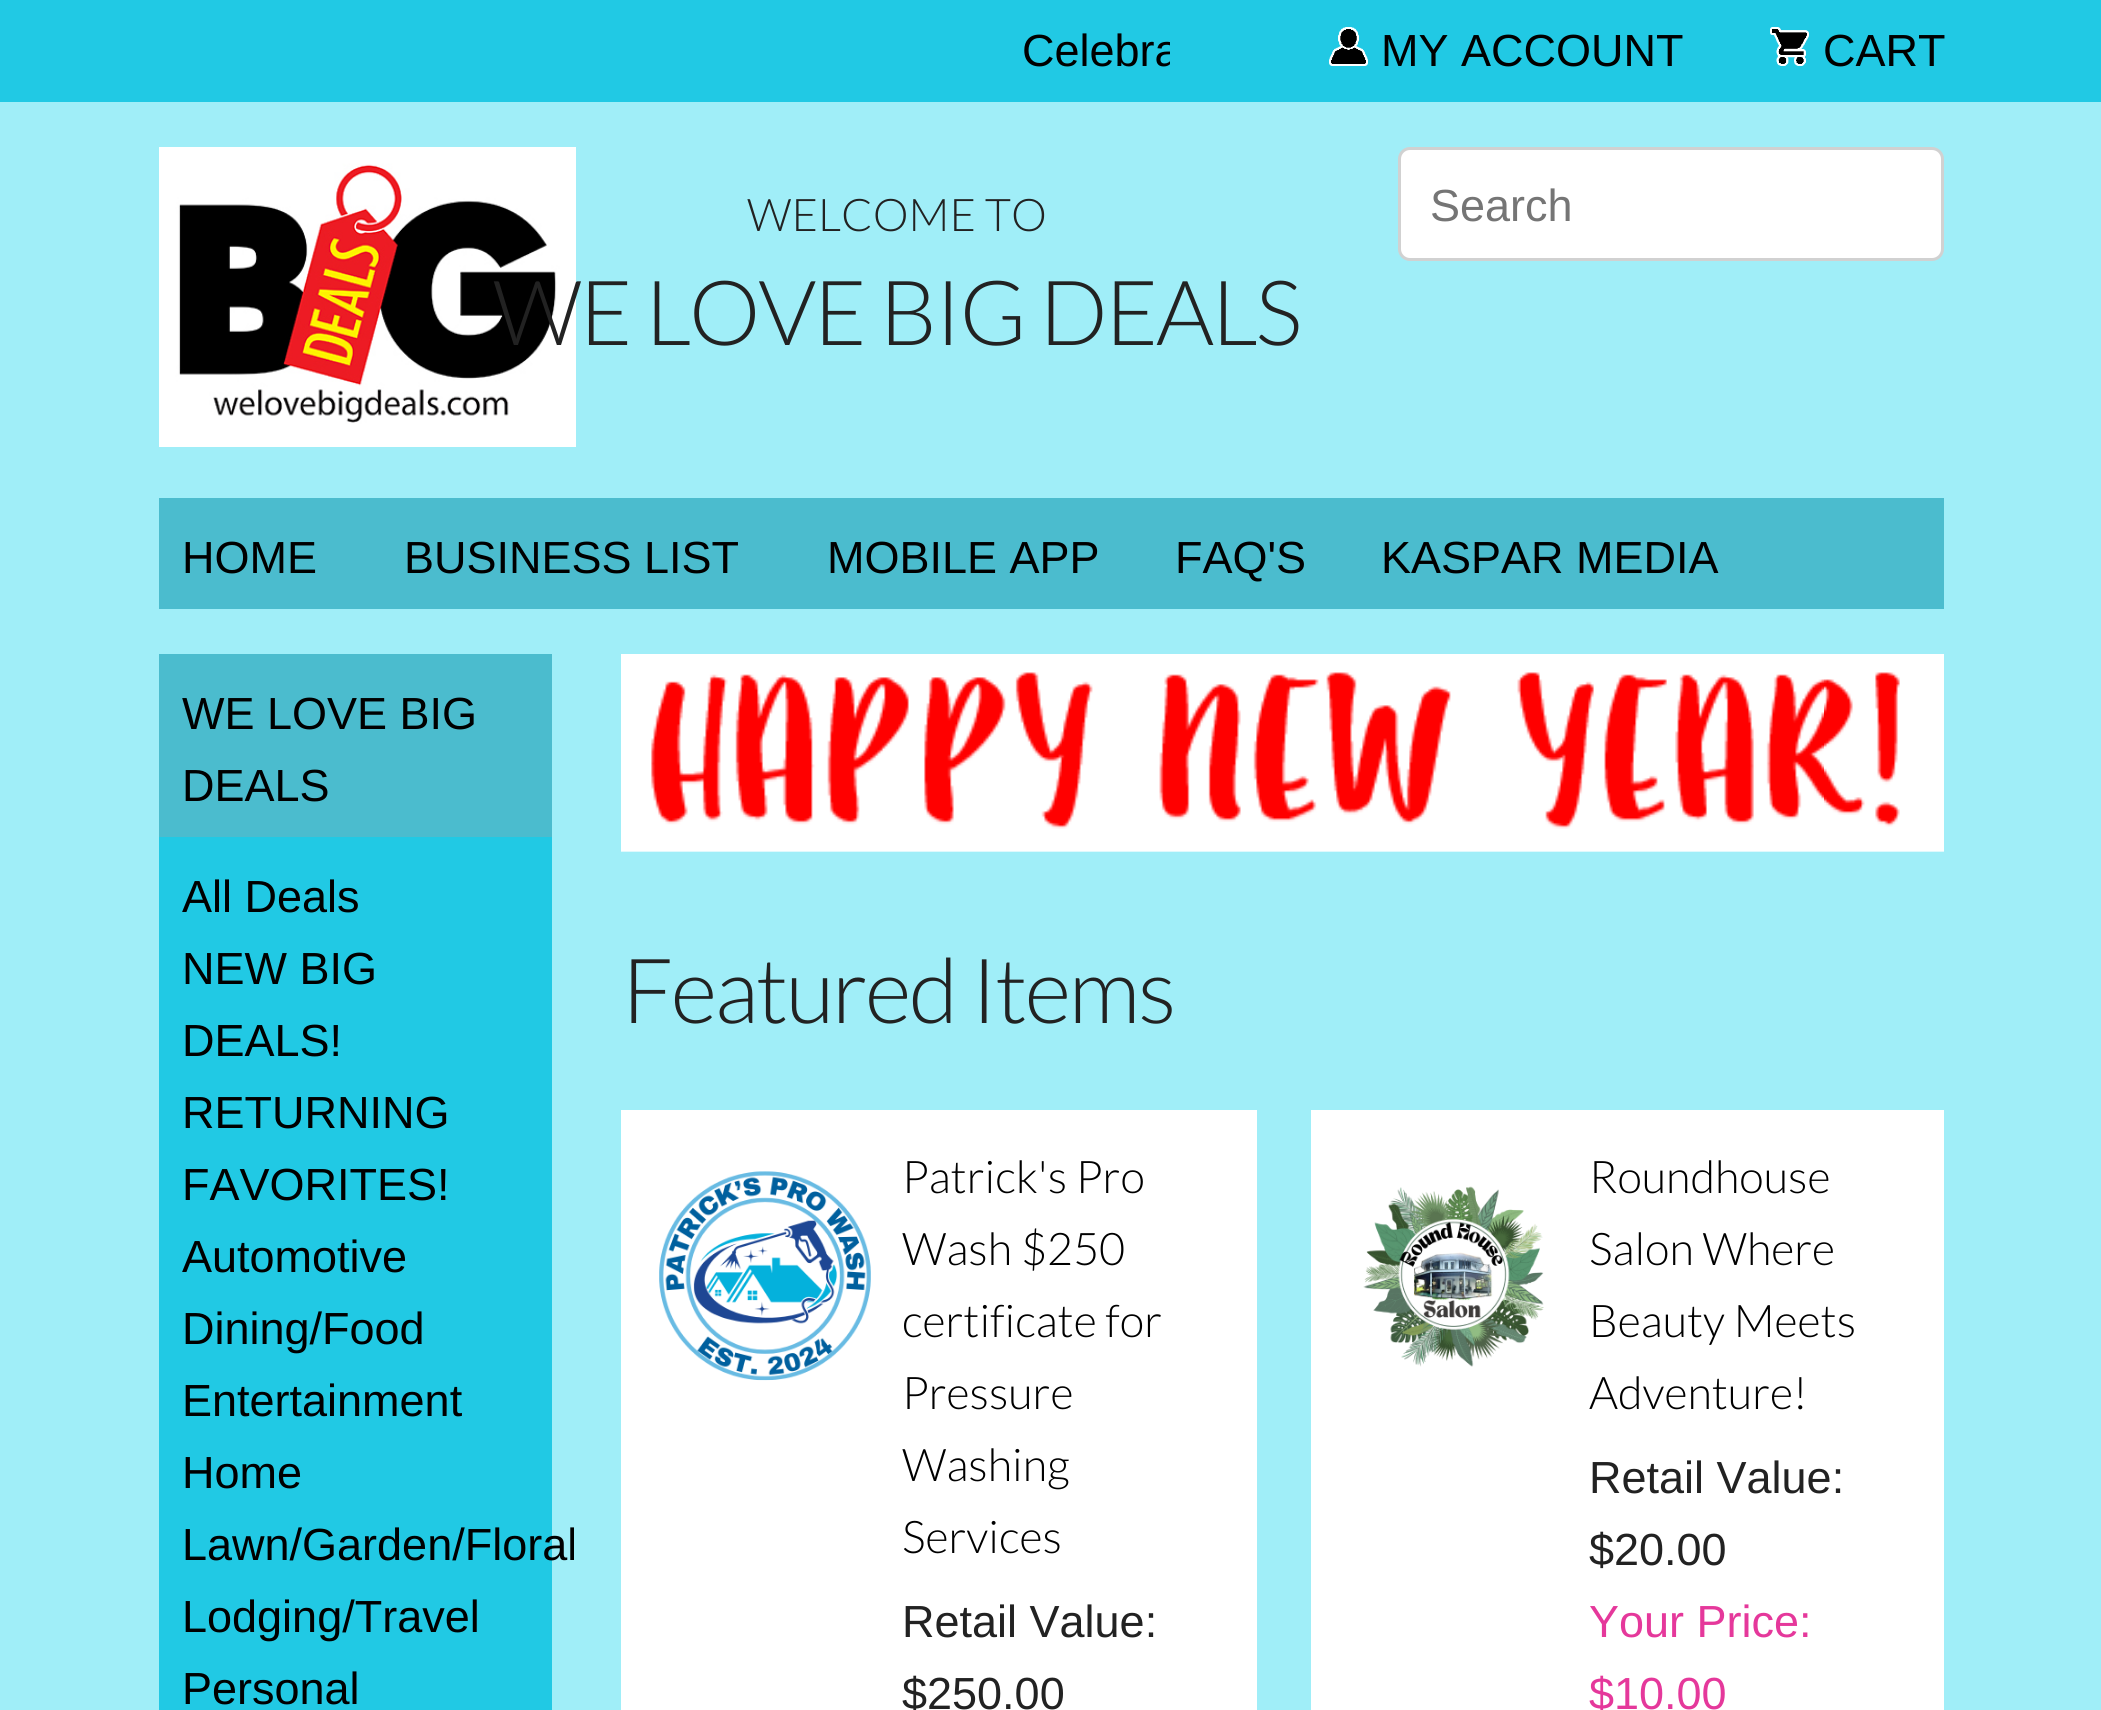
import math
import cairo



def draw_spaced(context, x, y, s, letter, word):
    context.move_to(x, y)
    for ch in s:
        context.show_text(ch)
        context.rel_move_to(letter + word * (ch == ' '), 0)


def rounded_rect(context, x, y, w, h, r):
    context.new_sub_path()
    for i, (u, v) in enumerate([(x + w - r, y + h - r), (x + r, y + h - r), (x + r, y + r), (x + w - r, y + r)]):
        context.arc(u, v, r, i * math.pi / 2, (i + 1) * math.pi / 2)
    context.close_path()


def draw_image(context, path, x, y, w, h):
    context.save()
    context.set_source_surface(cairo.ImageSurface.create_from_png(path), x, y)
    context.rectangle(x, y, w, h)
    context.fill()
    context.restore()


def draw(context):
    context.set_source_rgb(160 / 255, 238 / 255, 248 / 255)
    context.paint()
    context.set_source_rgb(33 / 255, 201 / 255, 228 / 255)
    context.rectangle(0, 0, 2101, 102)
    context.fill()
    draw_image(context, "images/1.png", 1329, 27, 39, 39)
    draw_image(context, "images/2.png", 1770, 27, 39, 39)
    draw_image(context, "images/3.png", 159, 147, 417, 300)
    context.set_source_rgb(1, 1, 1)
    rounded_rect(context, 1399.5, 148.5, 543, 111, 10.5)
    context.fill_preserve()
    context.set_source_rgb(209 / 255, 209 / 255, 209 / 255)
    context.set_line_width(3)
    context.stroke()
    context.set_source_rgb(75 / 255, 188 / 255, 206 / 255)
    context.rectangle(159, 498, 1785, 111)
    context.fill()
    context.rectangle(159, 654, 393, 183)
    context.fill()
    context.set_source_rgb(33 / 255, 201 / 255, 228 / 255)
    context.rectangle(159, 837, 393, 873)
    context.fill()
    draw_image(context, "images/4.png", 621, 654, 1323, 198)
    context.set_source_rgb(1, 1, 1)
    context.rectangle(621, 1110, 636, 600)
    context.fill()
    draw_image(context, "images/5.png", 659, 1171, 212, 210)
    context.rectangle(1311, 1110, 633, 600)
    context.fill()
    draw_image(context, "images/6.png", 1363, 1186, 181, 181)
    context.save()
    context.rectangle(159, 15, 1011, 72)
    context.clip()
    context.select_font_face("Liberation Sans")
    context.set_font_size(45)
    context.set_source_rgb(0, 0, 0)
    context.move_to(1022, 66)
    context.show_text("Celebra")
    context.restore()
    context.select_font_face("Liberation Sans")
    context.set_font_size(45)
    context.set_source_rgb(0, 0, 0)
    context.move_to(1381, 66)
    context.show_text("MY ACCOUNT")
    context.move_to(1823, 66)
    context.show_text("CART")
    context.select_font_face("Lato Light")
    context.set_source_rgb(34 / 255, 34 / 255, 34 / 255)
    context.move_to(747, 231)
    context.show_text("WELCOME TO")
    context.set_font_size(90)
    draw_spaced(context, 493, 345, "WE LOVE BIG DEALS", -2.4, 0)
    context.select_font_face("Liberation Sans")
    context.set_font_size(45)
    context.set_source_rgb(117 / 255, 117 / 255, 117 / 255)
    context.move_to(1430, 221)
    context.show_text("Search")
    context.set_source_rgb(0, 0, 0)
    context.move_to(182, 573)
    context.show_text("HOME")
    context.move_to(404, 573)
    context.show_text("BUSINESS LIST")
    context.move_to(827, 573)
    context.show_text("MOBILE APP")
    context.move_to(1175, 573)
    context.show_text("FAQ'S")
    context.move_to(1381, 573)
    context.show_text("KASPAR MEDIA")
    context.move_to(182, 729)
    context.show_text("WE LOVE BIG")
    context.move_to(182, 801)
    context.show_text("DEALS")
    context.move_to(182, 912)
    context.show_text("All Deals")
    context.move_to(182, 984)
    context.show_text("NEW BIG")
    context.move_to(182, 1056)
    context.show_text("DEALS!")
    context.move_to(182, 1128)
    context.show_text("RETURNING")
    context.move_to(182, 1200)
    context.show_text("FAVORITES!")
    context.move_to(182, 1272)
    context.show_text("Automotive")
    context.move_to(182, 1344)
    context.show_text("Dining/Food")
    context.move_to(182, 1416)
    context.show_text("Entertainment")
    context.move_to(182, 1488)
    context.show_text("Home")
    context.move_to(182, 1560)
    context.show_text("Lawn/Garden/Floral")
    context.move_to(182, 1632)
    context.show_text("Lodging/Travel")
    context.move_to(182, 1704)
    context.show_text("Personal")
    context.select_font_face("Lato Light")
    context.set_font_size(90)
    context.set_source_rgb(34 / 255, 34 / 255, 34 / 255)
    draw_spaced(context, 622, 1023, "Featured Items", -2.4, 0)
    context.set_font_size(45)
    context.set_source_rgb(0, 0, 0)
    context.move_to(902, 1193)
    context.show_text("Patrick's Pro")
    context.move_to(902, 1265)
    context.show_text("Wash $250")
    context.move_to(902, 1337)
    context.show_text("certificate for")
    context.move_to(902, 1409)
    context.show_text("Pressure")
    context.move_to(902, 1481)
    context.show_text("Washing")
    context.move_to(902, 1553)
    context.show_text("Services")
    context.select_font_face("Liberation Sans")
    context.set_source_rgb(34 / 255, 34 / 255, 34 / 255)
    context.move_to(902, 1637)
    context.show_text("Retail Value:")
    context.move_to(902, 1709)
    context.show_text("$250.00")
    context.select_font_face("Lato Light")
    context.set_source_rgb(0, 0, 0)
    context.move_to(1589, 1193)
    context.show_text("Roundhouse")
    context.move_to(1589, 1265)
    context.show_text("Salon Where")
    context.move_to(1589, 1337)
    context.show_text("Beauty Meets")
    context.move_to(1589, 1409)
    context.show_text("Adventure!")
    context.select_font_face("Liberation Sans")
    context.set_source_rgb(34 / 255, 34 / 255, 34 / 255)
    context.move_to(1589, 1493)
    context.show_text("Retail Value:")
    context.move_to(1589, 1565)
    context.show_text("$20.00")
    context.set_source_rgb(229 / 255, 56 / 255, 155 / 255)
    context.move_to(1589, 1637)
    context.show_text("Your Price:")
    context.move_to(1589, 1709)
    context.show_text("$10.00")


surface = cairo.ImageSurface(cairo.Format.RGB24, 2101, 1710)
context = cairo.Context(surface)
options = cairo.FontOptions()
options.set_hint_metrics(cairo.HintMetrics.OFF)
options.set_hint_style(cairo.HintStyle.NONE)
context.set_font_options(options)
context.set_miter_limit(4)
draw(context)
surface.write_to_png("out.png")
